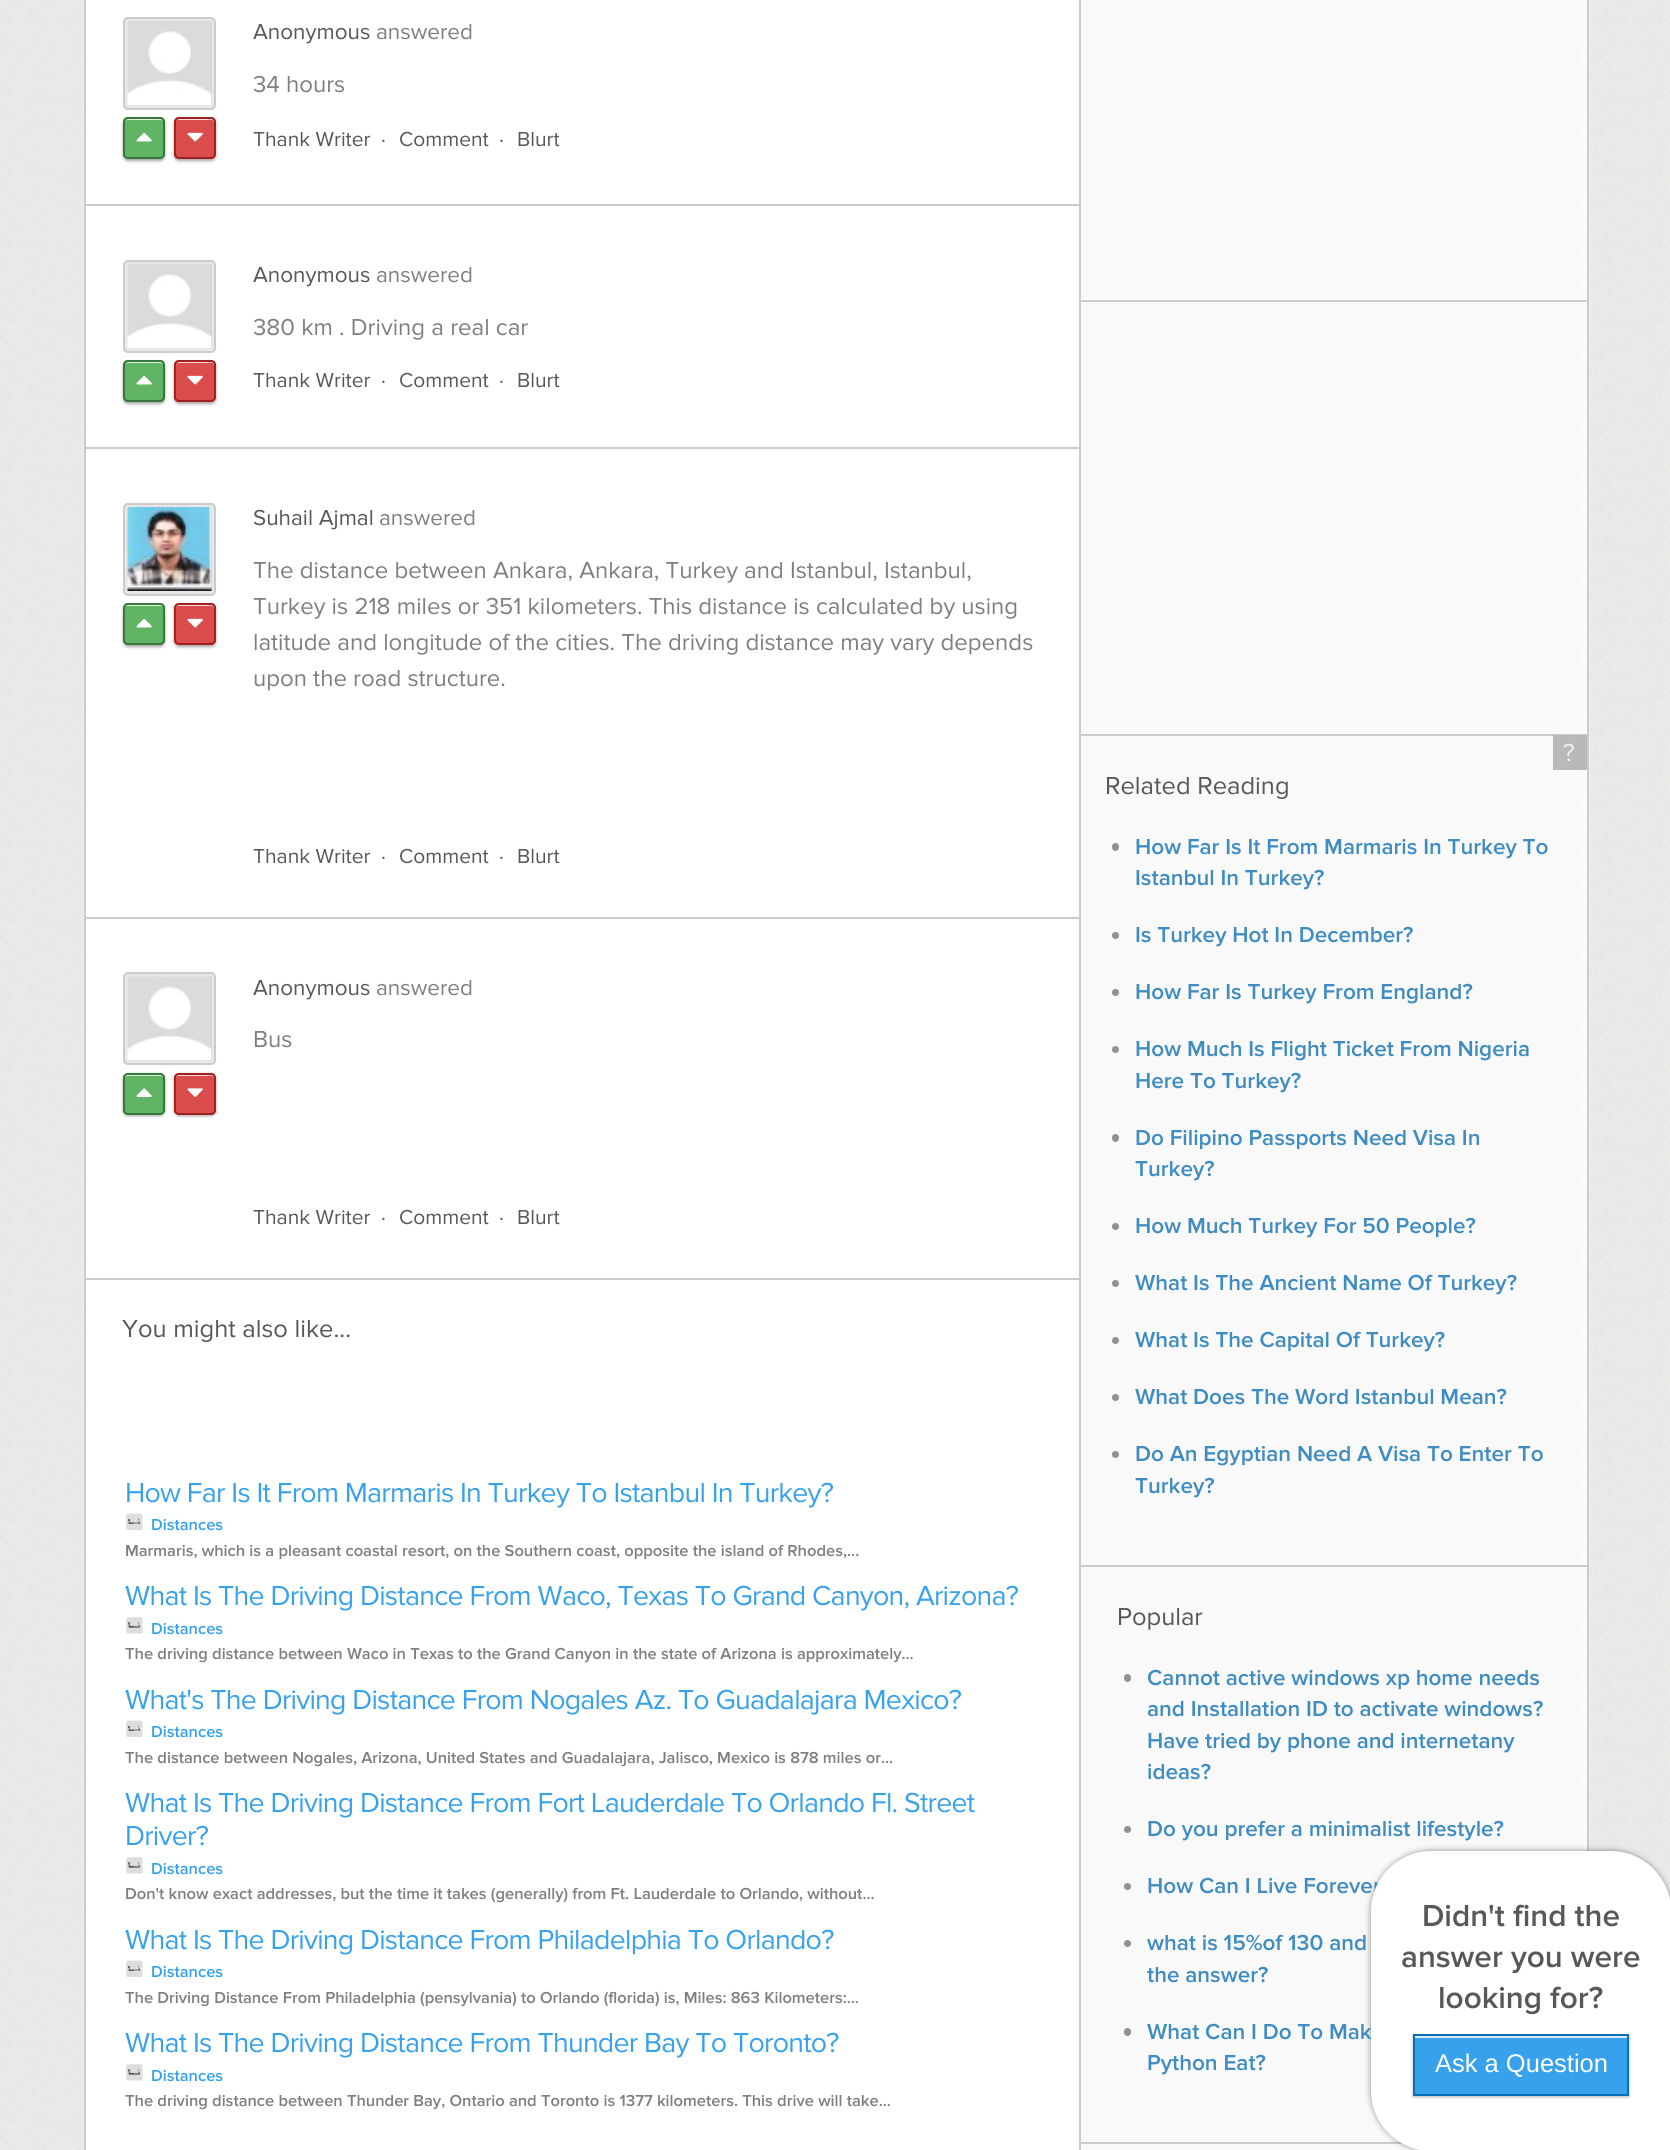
import math
import cairo



def draw_spaced(context, x, y, s, letter, word):
    context.move_to(x, y)
    for ch in s:
        context.show_text(ch)
        context.rel_move_to(letter + word * (ch == ' '), 0)


def rounded_rect(context, x, y, w, h, r):
    context.new_sub_path()
    for i, (u, v) in enumerate([(x + w - r, y + h - r), (x + r, y + h - r), (x + r, y + r), (x + w - r, y + r)]):
        context.arc(u, v, r, i * math.pi / 2, (i + 1) * math.pi / 2)
    context.close_path()


def draw_shadow(context, x, y, w, h, r, blur, alpha):
    context.push_group_with_content(cairo.Content.ALPHA)
    context.set_operator(cairo.Operator.SOURCE)
    for i in range(15, -16, -2):
        e = blur * i / 6
        if min(w, h) + 2 * e > 0:
            context.set_source_rgba(0, 0, 0, alpha * math.erfc((i - 1) / 8.5) / 2)
            rounded_rect(context, x - e, y - e, w + 2 * e, h + 2 * e, max(0, min(r + e + blur * .6, min(w, h) / 2 + e)))
            context.fill()
    context.mask(context.pop_group())


def draw_image(context, path, x, y, w, h):
    context.save()
    context.set_source_surface(cairo.ImageSurface.create_from_png(path), x, y)
    context.rectangle(x, y, w, h)
    context.fill()
    context.restore()


def draw(context):
    context.set_source_rgb(1, 1, 1)
    context.paint()
    draw_image(context, "images/1.png", 0, 0, 1670, 2150)
    draw_shadow(context, 84, -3, 1505, 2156, 0, 1, 0.8)
    context.set_source_rgb(249 / 255, 249 / 255, 249 / 255)
    context.rectangle(1082, 2, 499, 2148)
    context.fill()
    context.rectangle(85, -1, 1503, 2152)
    context.set_source_rgb(203 / 255, 203 / 255, 203 / 255)
    context.stroke()
    context.set_source_rgb(1, 1, 1)
    context.rectangle(86, 0, 993, 2150)
    context.fill()
    context.set_source_rgb(203 / 255, 203 / 255, 203 / 255)
    context.rectangle(1079, 0, 2, 2150)
    context.fill()
    context.rectangle(86, 204, 993, 2)
    context.fill()
    context.set_source_rgb(236 / 255, 230 / 255, 231 / 255)
    rounded_rect(context, 124, 18, 91, 91, 4)
    context.fill_preserve()
    context.set_source_rgb(203 / 255, 203 / 255, 203 / 255)
    context.stroke()
    context.rectangle(211, 21, 1, 84)
    context.fill()
    draw_image(context, "images/2.png", 127, 21, 85, 84)
    context.set_source_rgb(0, 0, 0)
    draw_shadow(context, 123, 119, 42, 42, 5, 1.5, 0.35)
    context.set_source_rgb(97 / 255, 180 / 255, 99 / 255)
    rounded_rect(context, 123, 117, 42, 42, 5)
    context.fill()
    context.set_source_rgb(223 / 255, 240 / 255, 224 / 255)
    context.new_path()
    context.move_to(128, 120)
    context.line_to(160, 120)
    context.curve_to(162, 120, 164, 121, 164, 123)
    context.line_to(164, 122)
    context.curve_to(164, 120.5, 162.5, 119, 161, 119)
    context.line_to(128, 119)
    context.curve_to(127, 119, 126, 119.5, 125.5, 120.5)
    context.close_path()
    context.fill()
    rounded_rect(context, 124, 118, 40, 40, 4)
    context.set_source_rgb(56 / 255, 119 / 255, 58 / 255)
    context.stroke()
    draw_image(context, "images/3.png", 136, 132, 16, 10)
    context.set_source_rgb(0, 0, 0)
    draw_shadow(context, 174, 119, 42, 42, 5, 1.5, 0.35)
    context.set_source_rgb(219 / 255, 77 / 255, 77 / 255)
    rounded_rect(context, 174, 117, 42, 42, 5)
    context.fill()
    context.set_source_rgb(248 / 255, 219 / 255, 219 / 255)
    context.new_path()
    context.move_to(178, 120)
    context.line_to(206.5, 120)
    context.curve_to(209.5, 120, 214, 118.5, 214, 123)
    context.line_to(214, 157.5)
    context.curve_to(214.5, 157, 215, 156, 215, 155)
    context.line_to(215, 122)
    context.curve_to(215, 120.5, 213.5, 119, 212, 119)
    context.line_to(179, 119)
    context.curve_to(177.5, 119, 176, 120.5, 176, 122)
    context.line_to(176, 123)
    context.curve_to(176, 121, 177, 120, 178, 120)
    context.close_path()
    context.fill()
    rounded_rect(context, 175, 118, 40, 40, 4)
    context.set_source_rgb(161 / 255, 33 / 255, 33 / 255)
    context.stroke()
    draw_image(context, "images/4.png", 187, 132, 16, 10)
    context.set_source_rgb(203 / 255, 203 / 255, 203 / 255)
    context.rectangle(86, 447, 993, 2)
    context.fill()
    context.set_source_rgb(236 / 255, 230 / 255, 231 / 255)
    rounded_rect(context, 124, 261, 91, 91, 4)
    context.fill_preserve()
    context.set_source_rgb(203 / 255, 203 / 255, 203 / 255)
    context.stroke()
    context.rectangle(211, 264, 1, 84)
    context.fill()
    draw_image(context, "images/2.png", 127, 264, 85, 84)
    context.set_source_rgb(0, 0, 0)
    draw_shadow(context, 123, 362, 42, 42, 5, 1.5, 0.35)
    context.set_source_rgb(97 / 255, 180 / 255, 99 / 255)
    rounded_rect(context, 123, 360, 42, 42, 5)
    context.fill()
    context.set_source_rgb(223 / 255, 240 / 255, 224 / 255)
    context.new_path()
    context.move_to(128, 363)
    context.line_to(160, 363)
    context.curve_to(162, 363, 164, 364, 164, 366)
    context.line_to(164, 365)
    context.curve_to(164, 363.5, 162.5, 362, 161, 362)
    context.line_to(128, 362)
    context.curve_to(127, 362, 126, 362.5, 125.5, 363.5)
    context.close_path()
    context.fill()
    rounded_rect(context, 124, 361, 40, 40, 4)
    context.set_source_rgb(56 / 255, 119 / 255, 58 / 255)
    context.stroke()
    draw_image(context, "images/3.png", 136, 375, 16, 10)
    context.set_source_rgb(0, 0, 0)
    draw_shadow(context, 174, 362, 42, 42, 5, 1.5, 0.35)
    context.set_source_rgb(219 / 255, 77 / 255, 77 / 255)
    rounded_rect(context, 174, 360, 42, 42, 5)
    context.fill()
    context.set_source_rgb(248 / 255, 219 / 255, 219 / 255)
    context.new_path()
    context.move_to(178, 363)
    context.line_to(206.5, 363)
    context.curve_to(209.5, 363, 214, 361.5, 214, 366)
    context.line_to(214, 400.5)
    context.curve_to(214.5, 400, 215, 399, 215, 398)
    context.line_to(215, 365)
    context.curve_to(215, 363.5, 213.5, 362, 212, 362)
    context.line_to(179, 362)
    context.curve_to(177.5, 362, 176, 363.5, 176, 365)
    context.line_to(176, 366)
    context.curve_to(176, 364, 177, 363, 178, 363)
    context.close_path()
    context.fill()
    rounded_rect(context, 175, 361, 40, 40, 4)
    context.set_source_rgb(161 / 255, 33 / 255, 33 / 255)
    context.stroke()
    draw_image(context, "images/4.png", 187, 375, 16, 10)
    context.set_source_rgb(203 / 255, 203 / 255, 203 / 255)
    context.rectangle(86, 917, 993, 2)
    context.fill()
    context.set_source_rgb(236 / 255, 230 / 255, 231 / 255)
    rounded_rect(context, 124, 504, 91, 91, 4)
    context.fill_preserve()
    context.set_source_rgb(203 / 255, 203 / 255, 203 / 255)
    context.stroke()
    context.rectangle(211, 507, 1, 84)
    context.fill()
    draw_image(context, "images/5.png", 127, 507, 85, 84)
    context.set_source_rgb(0, 0, 0)
    draw_shadow(context, 123, 605, 42, 42, 5, 1.5, 0.35)
    context.set_source_rgb(97 / 255, 180 / 255, 99 / 255)
    rounded_rect(context, 123, 603, 42, 42, 5)
    context.fill()
    context.set_source_rgb(223 / 255, 240 / 255, 224 / 255)
    context.new_path()
    context.move_to(128, 606)
    context.line_to(160, 606)
    context.curve_to(162, 606, 164, 607, 164, 609)
    context.line_to(164, 608)
    context.curve_to(164, 606.5, 162.5, 605, 161, 605)
    context.line_to(128, 605)
    context.curve_to(127, 605, 126, 605.5, 125.5, 606.5)
    context.close_path()
    context.fill()
    rounded_rect(context, 124, 604, 40, 40, 4)
    context.set_source_rgb(56 / 255, 119 / 255, 58 / 255)
    context.stroke()
    draw_image(context, "images/3.png", 136, 618, 16, 10)
    context.set_source_rgb(0, 0, 0)
    draw_shadow(context, 174, 605, 42, 42, 5, 1.5, 0.35)
    context.set_source_rgb(219 / 255, 77 / 255, 77 / 255)
    rounded_rect(context, 174, 603, 42, 42, 5)
    context.fill()
    context.set_source_rgb(248 / 255, 219 / 255, 219 / 255)
    context.new_path()
    context.move_to(178, 606)
    context.line_to(206.5, 606)
    context.curve_to(209.5, 606, 214, 604.5, 214, 609)
    context.line_to(214, 643.5)
    context.curve_to(214.5, 643, 215, 642, 215, 641)
    context.line_to(215, 608)
    context.curve_to(215, 606.5, 213.5, 605, 212, 605)
    context.line_to(179, 605)
    context.curve_to(177.5, 605, 176, 606.5, 176, 608)
    context.line_to(176, 609)
    context.curve_to(176, 607, 177, 606, 178, 606)
    context.close_path()
    context.fill()
    rounded_rect(context, 175, 604, 40, 40, 4)
    context.set_source_rgb(161 / 255, 33 / 255, 33 / 255)
    context.stroke()
    draw_image(context, "images/4.png", 187, 618, 16, 10)
    context.set_source_rgb(203 / 255, 203 / 255, 203 / 255)
    context.rectangle(86, 1278, 993, 2)
    context.fill()
    context.set_source_rgb(236 / 255, 230 / 255, 231 / 255)
    rounded_rect(context, 124, 973, 91, 91, 4)
    context.fill_preserve()
    context.set_source_rgb(203 / 255, 203 / 255, 203 / 255)
    context.stroke()
    context.rectangle(128, 977, 84, 84)
    context.fill()
    draw_image(context, "images/6.png", 127, 976, 85, 85)
    context.set_source_rgb(0, 0, 0)
    draw_shadow(context, 123, 1074, 42, 42, 5, 1.5, 0.35)
    context.set_source_rgb(97 / 255, 180 / 255, 99 / 255)
    rounded_rect(context, 123, 1073, 42, 42, 5)
    context.fill()
    context.set_source_rgb(223 / 255, 240 / 255, 224 / 255)
    context.new_path()
    context.move_to(128, 1076)
    context.line_to(160, 1076)
    context.curve_to(162, 1076, 164, 1077, 164, 1078)
    context.line_to(164, 1077)
    context.curve_to(164, 1075.5, 162.5, 1074, 161, 1074)
    context.line_to(128, 1074)
    context.curve_to(126.5, 1074, 125, 1075, 125, 1077)
    context.close_path()
    context.fill()
    rounded_rect(context, 124, 1074, 40, 40, 4)
    context.set_source_rgb(56 / 255, 119 / 255, 58 / 255)
    context.stroke()
    draw_image(context, "images/7.png", 136, 1088, 16, 9)
    context.set_source_rgb(0, 0, 0)
    draw_shadow(context, 174, 1074, 42, 42, 5, 1.5, 0.35)
    context.set_source_rgb(219 / 255, 77 / 255, 77 / 255)
    rounded_rect(context, 174, 1073, 42, 42, 5)
    context.fill()
    context.set_source_rgb(248 / 255, 219 / 255, 219 / 255)
    context.new_path()
    context.move_to(178, 1076)
    context.line_to(206.5, 1076)
    context.curve_to(207, 1076, 214, 1074.5, 214, 1078)
    context.line_to(214, 1112.5)
    context.curve_to(214.5, 1111.5, 215, 1111, 215, 1110)
    context.line_to(215, 1077)
    context.curve_to(215, 1075.5, 213.5, 1074, 212, 1074)
    context.line_to(179, 1074)
    context.curve_to(177.5, 1074, 176, 1075.5, 176, 1077)
    context.line_to(176, 1078)
    context.curve_to(176, 1077, 177, 1076, 178, 1076)
    context.close_path()
    context.fill()
    rounded_rect(context, 175, 1074, 40, 40, 4)
    context.set_source_rgb(161 / 255, 33 / 255, 33 / 255)
    context.stroke()
    draw_image(context, "images/8.png", 187, 1088, 16, 9)
    draw_image(context, "images/9.png", 126, 1513, 17, 17)
    draw_image(context, "images/10.png", 126, 1617, 17, 17)
    draw_image(context, "images/9.png", 126, 1720, 17, 17)
    draw_image(context, "images/10.png", 126, 1857, 17, 17)
    draw_image(context, "images/9.png", 126, 1960, 17, 17)
    draw_image(context, "images/10.png", 126, 2064, 17, 17)
    context.set_source_rgb(203 / 255, 203 / 255, 203 / 255)
    context.rectangle(1080, 300, 507, 2)
    context.fill()
    context.rectangle(1080, 734, 507, 2)
    context.fill()
    context.rectangle(1080, 1565, 507, 2)
    context.fill()
    context.set_source_rgb(185 / 255, 185 / 255, 185 / 255)
    context.rectangle(1553, 735, 34, 35)
    context.fill()
    context.set_source_rgb(145 / 255, 145 / 255, 145 / 255)
    rounded_rect(context, 1112, 843, 7, 8, 3.5)
    context.fill()
    context.arc(1115.5, 935.5, 3.5, 0, 2 * math.pi)
    context.fill()
    context.arc(1115.5, 992.5, 3.5, 0, 2 * math.pi)
    context.fill()
    context.arc(1115.5, 1049.5, 3.5, 0, 2 * math.pi)
    context.fill()
    rounded_rect(context, 1112, 1134, 7, 8, 3.5)
    context.fill()
    context.arc(1115.5, 1226.5, 3.5, 0, 2 * math.pi)
    context.fill()
    context.arc(1115.5, 1283.5, 3.5, 0, 2 * math.pi)
    context.fill()
    context.arc(1115.5, 1340.5, 3.5, 0, 2 * math.pi)
    context.fill()
    context.arc(1115.5, 1397.5, 3.5, 0, 2 * math.pi)
    context.fill()
    context.arc(1115.5, 1454.5, 3.5, 0, 2 * math.pi)
    context.fill()
    context.set_source_rgb(203 / 255, 203 / 255, 203 / 255)
    context.rectangle(1080, 2142, 323, 2)
    context.fill()
    context.set_source_rgb(145 / 255, 145 / 255, 145 / 255)
    rounded_rect(context, 1124, 1674, 7, 8, 3.5)
    context.fill()
    context.arc(1127.5, 1829.5, 3.5, 0, 2 * math.pi)
    context.fill()
    context.arc(1127.5, 1886.5, 3.5, 0, 2 * math.pi)
    context.fill()
    context.arc(1127.5, 1943.5, 3.5, 0, 2 * math.pi)
    context.fill()
    rounded_rect(context, 1124, 2028, 7, 8, 3.5)
    context.fill()
    context.set_source_rgb(51 / 255, 51 / 255, 51 / 255)
    draw_shadow(context, 1371, 1851, 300, 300, 60, 3, 0.6)
    context.select_font_face("Proxima Nova")
    context.set_font_size(22.5)
    context.set_source_rgb(88 / 255, 88 / 255, 88 / 255)
    context.move_to(253, 39)
    context.show_text("Anonymous")
    context.set_source_rgb(127 / 255, 127 / 255, 127 / 255)
    context.move_to(376, 39)
    context.show_text("answered")
    context.set_font_size(24)
    context.move_to(253, 92)
    context.show_text("34 hours")
    context.set_font_size(21)
    context.set_source_rgb(88 / 255, 88 / 255, 88 / 255)
    context.move_to(253, 146)
    context.show_text("Thank Writer")
    context.move_to(381, 146)
    context.show_text("·")
    context.move_to(399, 146)
    context.show_text("Comment")
    context.move_to(499, 146)
    context.show_text("·")
    context.move_to(517, 146)
    context.show_text("Blurt")
    context.set_font_size(22.5)
    context.move_to(253, 282)
    context.show_text("Anonymous")
    context.set_source_rgb(127 / 255, 127 / 255, 127 / 255)
    context.move_to(376, 282)
    context.show_text("answered")
    context.set_font_size(24)
    context.move_to(253, 335)
    context.show_text("380 km . Driving a real car")
    context.set_font_size(21)
    context.set_source_rgb(88 / 255, 88 / 255, 88 / 255)
    context.move_to(253, 387)
    context.show_text("Thank Writer")
    context.move_to(381, 387)
    context.show_text("·")
    context.move_to(399, 387)
    context.show_text("Comment")
    context.move_to(499, 387)
    context.show_text("·")
    context.move_to(517, 387)
    context.show_text("Blurt")
    context.set_font_size(22.5)
    context.move_to(253, 525)
    context.show_text("Suhail Ajmal")
    context.set_source_rgb(127 / 255, 127 / 255, 127 / 255)
    context.move_to(379, 525)
    context.show_text("answered")
    context.set_font_size(24)
    context.move_to(253, 578)
    context.show_text("The distance between Ankara, Ankara, Turkey and Istanbul, Istanbul,")
    context.move_to(253, 614)
    context.show_text("Turkey is 218 miles or 351 kilometers. This distance is calculated by using")
    context.move_to(253, 650)
    context.show_text("latitude and longitude of the cities. The driving distance may vary depends")
    context.move_to(253, 686)
    context.show_text("upon the road structure.")
    context.set_font_size(21)
    context.set_source_rgb(88 / 255, 88 / 255, 88 / 255)
    context.move_to(253, 863)
    context.show_text("Thank Writer")
    context.move_to(381, 863)
    context.show_text("·")
    context.move_to(399, 863)
    context.show_text("Comment")
    context.move_to(499, 863)
    context.show_text("·")
    context.move_to(517, 863)
    context.show_text("Blurt")
    context.set_font_size(22.5)
    context.move_to(253, 995)
    context.show_text("Anonymous")
    context.set_source_rgb(127 / 255, 127 / 255, 127 / 255)
    context.move_to(376, 995)
    context.show_text("answered")
    context.set_font_size(24)
    context.move_to(253, 1047)
    context.show_text("Bus")
    context.set_font_size(21)
    context.set_source_rgb(88 / 255, 88 / 255, 88 / 255)
    context.move_to(253, 1224)
    context.show_text("Thank Writer")
    context.move_to(381, 1224)
    context.show_text("·")
    context.move_to(399, 1224)
    context.show_text("Comment")
    context.move_to(499, 1224)
    context.show_text("·")
    context.move_to(517, 1224)
    context.show_text("Blurt")
    context.set_font_size(25.5)
    context.move_to(122, 1337)
    context.show_text("You might also like...")
    context.set_font_size(28.5)
    context.set_source_rgb(56 / 255, 161 / 255, 236 / 255)
    draw_spaced(context, 125, 1502, "How Far Is It From Marmaris In Turkey To Istanbul In Turkey?", -0.75, 0)
    context.select_font_face("Proxima Nova SemiBold")
    context.set_font_size(16.5)
    context.move_to(151, 1530)
    context.show_text("Distances")
    context.set_source_rgb(127 / 255, 127 / 255, 127 / 255)
    context.move_to(125, 1556)
    context.show_text("Marmaris, which is a pleasant coastal resort, on the Southern coast, opposite the island of Rhodes,...")
    context.select_font_face("Proxima Nova")
    context.set_font_size(28.5)
    context.set_source_rgb(56 / 255, 161 / 255, 236 / 255)
    draw_spaced(context, 125, 1605, "What Is The Driving Distance From Waco, Texas To Grand Canyon, Arizona?", -0.75, 0)
    context.select_font_face("Proxima Nova SemiBold")
    context.set_font_size(16.5)
    context.move_to(151, 1634)
    context.show_text("Distances")
    context.set_source_rgb(127 / 255, 127 / 255, 127 / 255)
    context.move_to(125, 1659)
    context.show_text("The driving distance between Waco in Texas to the Grand Canyon in the state of Arizona is approximately...")
    context.select_font_face("Proxima Nova")
    context.set_font_size(28.5)
    context.set_source_rgb(56 / 255, 161 / 255, 236 / 255)
    draw_spaced(context, 125, 1709, "What's The Driving Distance From Nogales Az. To Guadalajara Mexico?", -0.75, 0)
    context.select_font_face("Proxima Nova SemiBold")
    context.set_font_size(16.5)
    context.move_to(151, 1737)
    context.show_text("Distances")
    context.set_source_rgb(127 / 255, 127 / 255, 127 / 255)
    context.move_to(125, 1763)
    context.show_text("The distance between Nogales, Arizona, United States and Guadalajara, Jalisco, Mexico is 878 miles or...")
    context.select_font_face("Proxima Nova")
    context.set_font_size(28.5)
    context.set_source_rgb(56 / 255, 161 / 255, 236 / 255)
    draw_spaced(context, 125, 1812, "What Is The Driving Distance From Fort Lauderdale To Orlando Fl. Street", -0.75, 0)
    draw_spaced(context, 125, 1845, "Driver?", -0.75, 0)
    context.select_font_face("Proxima Nova SemiBold")
    context.set_font_size(16.5)
    context.move_to(151, 1874)
    context.show_text("Distances")
    context.set_source_rgb(127 / 255, 127 / 255, 127 / 255)
    context.move_to(125, 1899)
    context.show_text("Don't know exact addresses, but the time it takes (generally) from Ft. Lauderdale to Orlando, without...")
    context.select_font_face("Proxima Nova")
    context.set_font_size(28.5)
    context.set_source_rgb(56 / 255, 161 / 255, 236 / 255)
    draw_spaced(context, 125, 1949, "What Is The Driving Distance From Philadelphia To Orlando?", -0.75, 0)
    context.select_font_face("Proxima Nova SemiBold")
    context.set_font_size(16.5)
    context.move_to(151, 1977)
    context.show_text("Distances")
    context.set_source_rgb(127 / 255, 127 / 255, 127 / 255)
    context.move_to(125, 2003)
    context.show_text("The Driving Distance From Philadelphia (pensylvania) to Orlando (florida) is, Miles: 863 Kilometers:...")
    context.select_font_face("Proxima Nova")
    context.set_font_size(28.5)
    context.set_source_rgb(56 / 255, 161 / 255, 236 / 255)
    draw_spaced(context, 125, 2052, "What Is The Driving Distance From Thunder Bay To Toronto?", -0.75, 0)
    context.select_font_face("Proxima Nova SemiBold")
    context.set_font_size(16.5)
    context.move_to(151, 2081)
    context.show_text("Distances")
    context.set_source_rgb(127 / 255, 127 / 255, 127 / 255)
    context.move_to(125, 2106)
    context.show_text("The driving distance between Thunder Bay, Ontario and Toronto is 1377 kilometers. This drive will take...")
    context.select_font_face("Proxima Nova")
    context.set_font_size(25.5)
    context.set_source_rgb(240 / 255, 240 / 255, 240 / 255)
    context.move_to(1563, 761)
    context.show_text("?")
    context.set_source_rgb(88 / 255, 88 / 255, 88 / 255)
    context.move_to(1105, 794)
    context.show_text("Related Reading")
    context.select_font_face("Proxima Nova SemiBold")
    context.set_font_size(22.5)
    context.set_source_rgb(63 / 255, 140 / 255, 195 / 255)
    context.move_to(1135, 854)
    context.show_text("How Far Is It From Marmaris In Turkey To")
    context.move_to(1135, 885)
    context.show_text("Istanbul In Turkey?")
    context.move_to(1135, 942)
    context.show_text("Is Turkey Hot In December?")
    context.move_to(1135, 999)
    context.show_text("How Far Is Turkey From England?")
    context.move_to(1135, 1056)
    context.show_text("How Much Is Flight Ticket From Nigeria")
    context.move_to(1135, 1088)
    context.show_text("Here To Turkey?")
    context.move_to(1135, 1145)
    context.show_text("Do Filipino Passports Need Visa In")
    context.move_to(1135, 1176)
    context.show_text("Turkey?")
    context.move_to(1135, 1233)
    context.show_text("How Much Turkey For 50 People?")
    context.move_to(1135, 1290)
    context.show_text("What Is The Ancient Name Of Turkey?")
    context.move_to(1135, 1347)
    context.show_text("What Is The Capital Of Turkey?")
    context.move_to(1135, 1404)
    context.show_text("What Does The Word Istanbul Mean?")
    context.move_to(1135, 1461)
    context.show_text("Do An Egyptian Need A Visa To Enter To")
    context.move_to(1135, 1493)
    context.show_text("Turkey?")
    context.select_font_face("Proxima Nova")
    context.set_font_size(25.5)
    context.set_source_rgb(88 / 255, 88 / 255, 88 / 255)
    context.move_to(1117, 1625)
    context.show_text("Popular")
    context.select_font_face("Proxima Nova SemiBold")
    context.set_font_size(22.5)
    context.set_source_rgb(63 / 255, 140 / 255, 195 / 255)
    context.move_to(1147, 1685)
    context.show_text("Cannot active windows xp home needs")
    context.move_to(1147, 1716)
    context.show_text("and Installation ID to activate windows?")
    context.move_to(1147, 1748)
    context.show_text("Have tried by phone and internetany")
    context.move_to(1147, 1779)
    context.show_text("ideas?")
    context.move_to(1147, 1836)
    context.show_text("Do you prefer a minimalist lifestyle?")
    context.move_to(1147, 1893)
    context.show_text("How Can I Live Forever")
    context.move_to(1147, 1950)
    context.show_text("what is 15%of 130 and")
    context.move_to(1147, 1982)
    context.show_text("the answer?")
    context.move_to(1147, 2039)
    context.show_text("What Can I Do To Mak")
    context.move_to(1147, 2070)
    context.show_text("Python Eat?")
    context.set_source_rgb(1, 1, 1)
    context.new_path()
    context.move_to(1431, 1851)
    context.line_to(1611, 1851)
    context.curve_to(1644, 1851, 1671, 1878, 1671, 1911)
    context.line_to(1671, 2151)
    context.line_to(1431, 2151)
    context.curve_to(1398, 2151, 1371, 2124, 1371, 2091)
    context.line_to(1371, 1911)
    context.curve_to(1371, 1878, 1398, 1851, 1431, 1851)
    context.close_path()
    context.fill()
    context.set_font_size(31.5)
    context.set_source_rgb(88 / 255, 88 / 255, 88 / 255)
    context.move_to(1422, 1926)
    context.show_text("Didn't find the")
    context.move_to(1401, 1967)
    context.show_text("answer you were")
    context.move_to(1438, 2008)
    context.show_text("looking for?")
    context.set_source_rgb(0, 0, 0)
    draw_shadow(context, 1413, 2036, 216, 61, 0, 1.5, 0.29)
    context.set_source_rgb(56 / 255, 161 / 255, 236 / 255)
    context.rectangle(1415, 2038, 212, 56)
    context.fill()
    context.set_source_rgb(215 / 255, 236 / 255, 251 / 255)
    context.rectangle(1415, 2036, 213, 2)
    context.fill()
    context.rectangle(1414, 2035, 214, 60)
    context.set_source_rgb(10 / 255, 110 / 255, 182 / 255)
    context.stroke()
    context.select_font_face("Liberation Sans")
    context.set_font_size(25.5)
    context.set_source_rgb(1, 1, 1)
    context.move_to(1435, 2072)
    context.show_text("Ask a Question")


surface = cairo.ImageSurface(cairo.Format.RGB24, 1670, 2150)
context = cairo.Context(surface)
options = cairo.FontOptions()
options.set_hint_metrics(cairo.HintMetrics.OFF)
options.set_hint_style(cairo.HintStyle.NONE)
context.set_font_options(options)
context.set_miter_limit(4)
draw(context)
surface.write_to_png("out.png")
